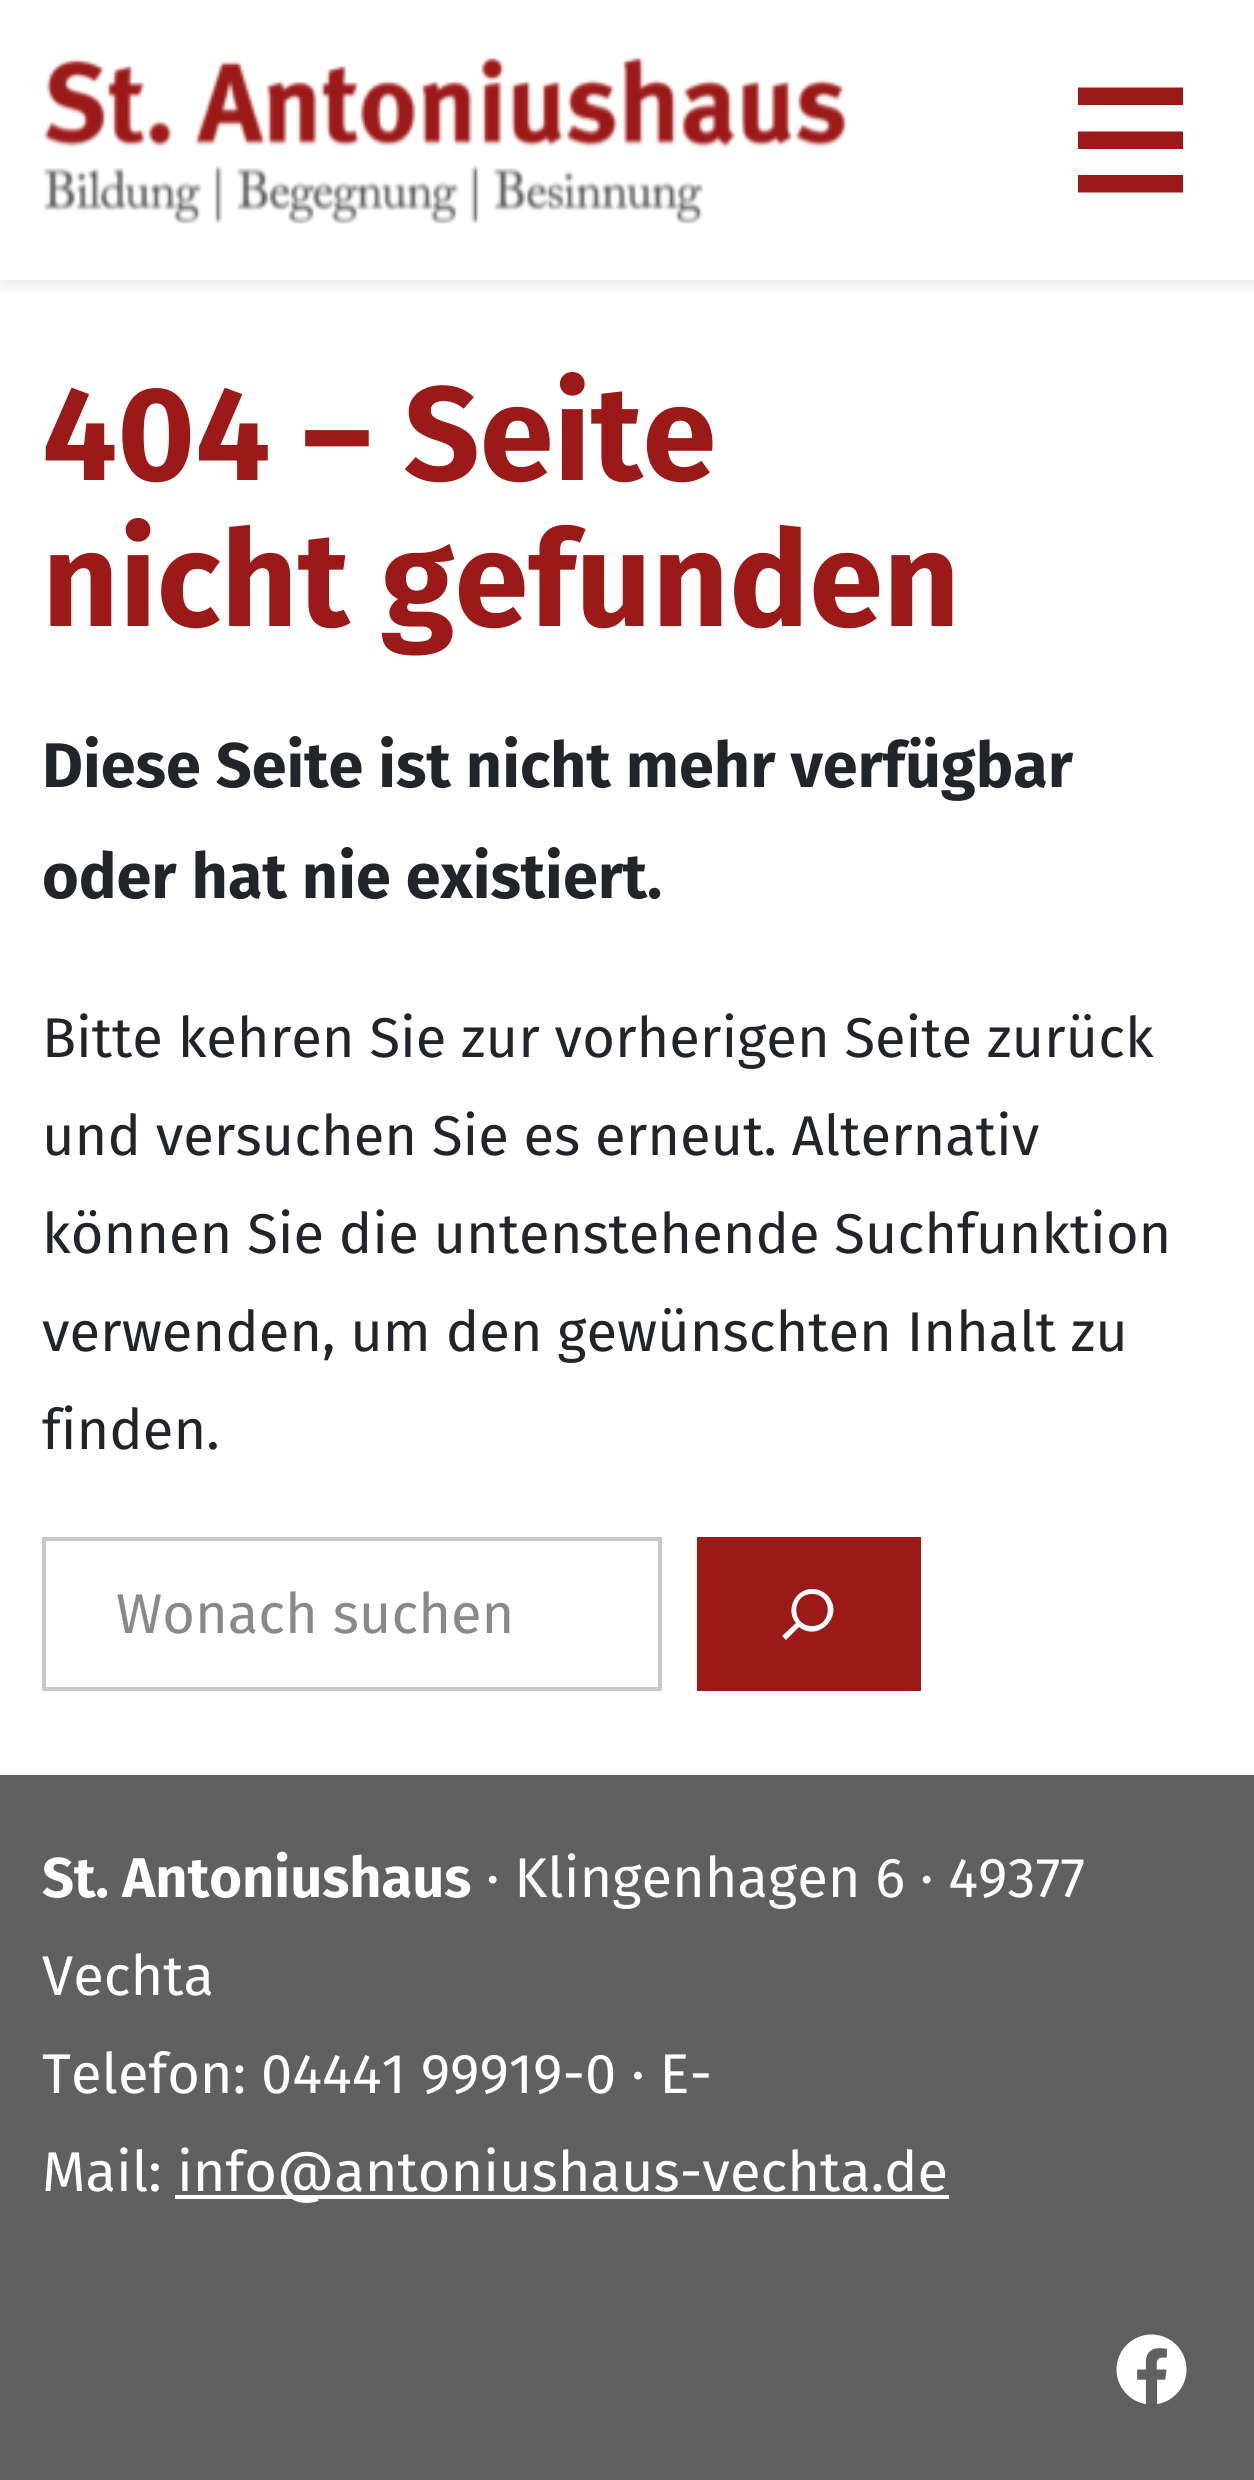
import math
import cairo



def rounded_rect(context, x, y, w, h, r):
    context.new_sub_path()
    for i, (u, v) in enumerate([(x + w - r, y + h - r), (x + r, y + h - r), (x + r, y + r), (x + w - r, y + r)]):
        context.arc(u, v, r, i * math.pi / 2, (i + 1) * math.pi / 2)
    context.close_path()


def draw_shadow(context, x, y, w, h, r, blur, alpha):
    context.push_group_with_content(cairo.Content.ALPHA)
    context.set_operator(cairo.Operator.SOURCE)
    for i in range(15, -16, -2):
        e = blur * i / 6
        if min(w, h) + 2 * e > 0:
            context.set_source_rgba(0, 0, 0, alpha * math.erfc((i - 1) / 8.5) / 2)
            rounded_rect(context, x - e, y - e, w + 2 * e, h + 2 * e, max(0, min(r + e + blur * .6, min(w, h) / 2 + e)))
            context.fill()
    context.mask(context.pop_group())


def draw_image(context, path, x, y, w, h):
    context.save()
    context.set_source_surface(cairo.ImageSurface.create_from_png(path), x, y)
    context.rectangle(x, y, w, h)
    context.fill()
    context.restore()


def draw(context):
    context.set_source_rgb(1, 1, 1)
    context.paint()
    context.save()
    context.rectangle(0, 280, 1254, 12)
    context.clip()
    context.set_source_rgb(0, 0, 0)
    draw_shadow(context, 0, 7, 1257, 280, 0, 7, 0.08)
    context.restore()
    draw_image(context, "images/1.png", 42, 56, 805, 168)
    context.set_source_rgb(155 / 255, 26 / 255, 25 / 255)
    context.new_path()
    context.move_to(1082, 91)
    context.line_to(1082, 102)
    context.line_to(1180, 102)
    context.line_to(1180, 91)
    context.close_path()
    context.move_to(1082, 146)
    context.line_to(1180, 146)
    context.line_to(1180, 135)
    context.line_to(1082, 135)
    context.close_path()
    context.move_to(1082, 189)
    context.line_to(1180, 189)
    context.line_to(1180, 178)
    context.line_to(1082, 178)
    context.close_path()
    context.fill()
    context.new_path()
    context.move_to(1081.5, 91)
    context.line_to(1081.5, 101.5)
    context.line_to(1179.5, 101.5)
    context.line_to(1179.5, 91)
    context.close_path()
    context.move_to(1081.5, 145.5)
    context.line_to(1179.5, 145.5)
    context.line_to(1179.5, 135)
    context.line_to(1081.5, 135)
    context.close_path()
    context.move_to(1081.5, 189)
    context.line_to(1179.5, 189)
    context.line_to(1179.5, 178.5)
    context.line_to(1081.5, 178.5)
    context.close_path()
    context.set_line_width(7)
    context.stroke()
    context.rectangle(44, 1539, 616, 150)
    context.set_source_rgb(200 / 255, 200 / 255, 200 / 255)
    context.set_line_width(4)
    context.stroke()
    context.set_source_rgb(155 / 255, 26 / 255, 25 / 255)
    context.rectangle(697, 1537, 224, 154)
    context.fill()
    context.set_source_rgb(1, 1, 1)
    context.new_path()
    context.move_to(812, 1589)
    context.curve_to(795, 1589, 785, 1610, 796, 1623)
    context.line_to(782, 1636)
    context.line_to(786, 1640)
    context.line_to(799, 1627)
    context.curve_to(819, 1643, 846, 1614, 827, 1595)
    context.curve_to(823, 1591, 818, 1589, 812, 1589)
    context.close_path()
    context.move_to(812, 1626)
    context.curve_to(791, 1626, 791, 1594, 812, 1594)
    context.curve_to(833, 1594, 833, 1626, 812, 1626)
    context.close_path()
    context.fill()
    context.set_source_rgb(96 / 255, 96 / 255, 96 / 255)
    context.rectangle(0, 1775, 1254, 705)
    context.fill()
    context.set_source_rgb(1, 1, 1)
    context.rectangle(175, 2195, 774, 4)
    context.fill()
    draw_image(context, "images/2.png", 1116, 2334, 71, 71)
    context.select_font_face("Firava", cairo.FontSlant.NORMAL, cairo.FontWeight.BOLD)
    context.set_font_size(133.5)
    context.set_source_rgb(155 / 255, 26 / 255, 25 / 255)
    context.move_to(42, 480)
    context.show_text("404 – Seite")
    context.move_to(42, 626)
    context.show_text("nicht gefunden")
    context.set_font_size(63)
    context.set_source_rgb(33 / 255, 37 / 255, 41 / 255)
    context.move_to(42, 787)
    context.show_text("Diese Seite ist nicht mehr verfügbar")
    context.move_to(42, 898)
    context.show_text("oder hat nie existiert.")
    context.select_font_face("Firava")
    context.set_font_size(56)
    context.move_to(42, 1057)
    context.show_text("Bitte kehren Sie zur vorherigen Seite zurück")
    context.move_to(42, 1155)
    context.show_text("und versuchen Sie es erneut. Alternativ")
    context.move_to(42, 1253)
    context.show_text("können Sie die untenstehende Suchfunktion")
    context.move_to(42, 1351)
    context.show_text("verwenden, um den gewünschten Inhalt zu")
    context.move_to(42, 1449)
    context.show_text("finden.")
    context.set_source_rgb(135 / 255, 137 / 255, 139 / 255)
    context.move_to(116, 1633)
    context.show_text("Wonach suchen")
    context.select_font_face("Firava", cairo.FontSlant.NORMAL, cairo.FontWeight.BOLD)
    context.set_source_rgb(1, 1, 1)
    context.move_to(42, 1897)
    context.show_text("St. Antoniushaus")
    context.select_font_face("Firava")
    context.move_to(486, 1897)
    context.show_text("· Klingenhagen 6 · 49377")
    context.move_to(42, 1995)
    context.show_text("Vechta")
    context.move_to(42, 2093)
    context.show_text("Telefon: 04441 99919-0 · E-")
    context.move_to(42, 2191)
    context.show_text("Mail:")
    context.move_to(177, 2191)
    context.show_text("info@antoniushaus-vechta.de")


surface = cairo.ImageSurface(cairo.Format.RGB24, 1254, 2480)
context = cairo.Context(surface)
options = cairo.FontOptions()
options.set_hint_metrics(cairo.HintMetrics.OFF)
options.set_hint_style(cairo.HintStyle.NONE)
context.set_font_options(options)
context.set_miter_limit(4)
draw(context)
surface.write_to_png("out.png")
